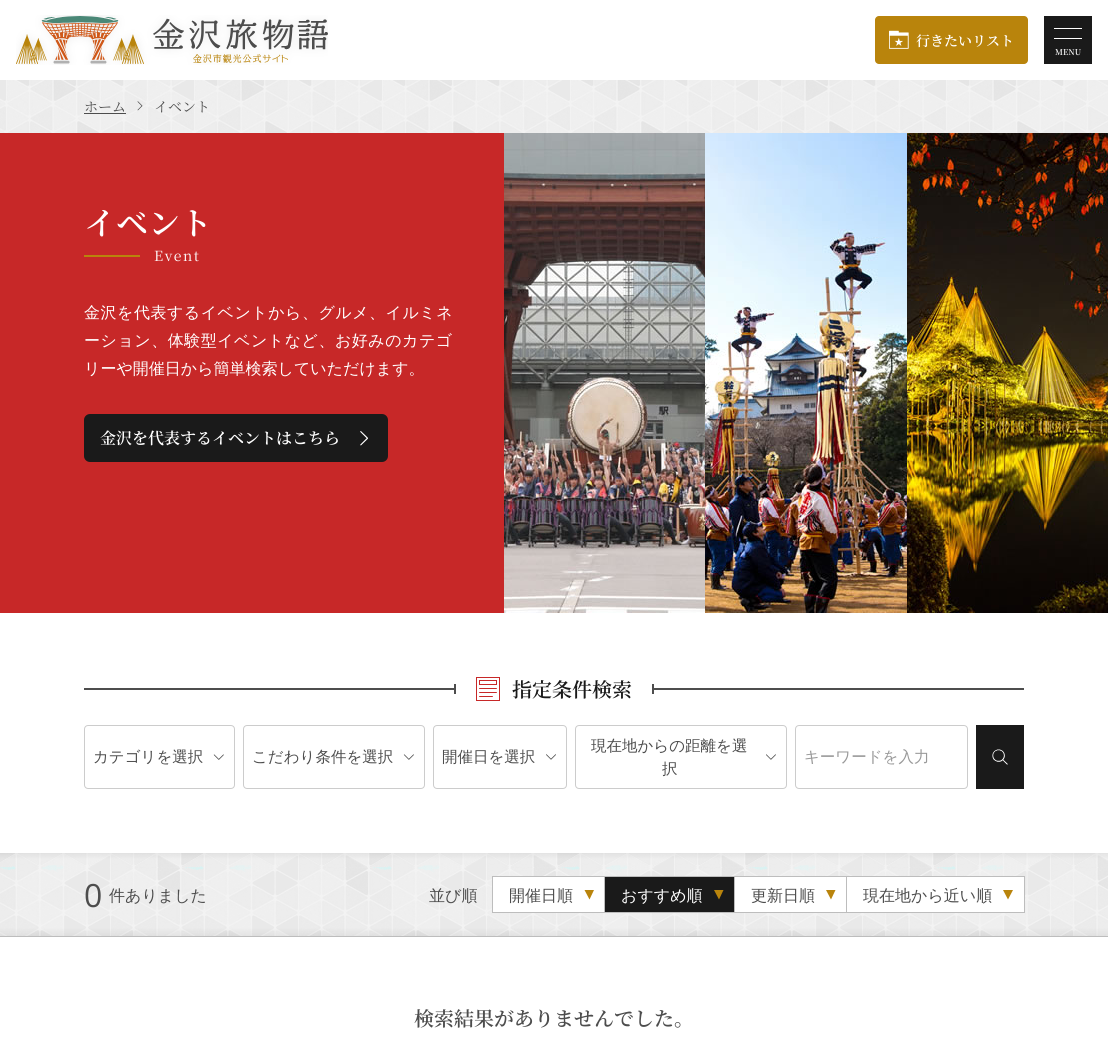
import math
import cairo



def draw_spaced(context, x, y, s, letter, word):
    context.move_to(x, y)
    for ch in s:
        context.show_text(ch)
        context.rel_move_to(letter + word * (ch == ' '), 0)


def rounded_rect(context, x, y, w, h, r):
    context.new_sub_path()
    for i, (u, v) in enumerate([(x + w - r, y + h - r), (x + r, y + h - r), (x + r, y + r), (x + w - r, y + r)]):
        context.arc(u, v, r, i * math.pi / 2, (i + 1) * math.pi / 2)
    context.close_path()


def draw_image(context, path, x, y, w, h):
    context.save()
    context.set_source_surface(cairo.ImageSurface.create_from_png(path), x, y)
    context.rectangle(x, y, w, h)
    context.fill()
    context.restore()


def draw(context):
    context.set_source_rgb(1, 1, 1)
    context.paint()
    draw_image(context, "images/1.png", 16, 15, 312, 50)
    context.set_source_rgb(185 / 255, 132 / 255, 12 / 255)
    rounded_rect(context, 875, 16, 153, 48, 4)
    context.fill()
    draw_image(context, "images/2.png", 889, 30, 20, 19)
    context.set_source_rgb(26 / 255, 26 / 255, 26 / 255)
    context.rectangle(1044, 16, 48, 48)
    context.fill()
    context.set_source_rgb(1, 1, 1)
    context.rectangle(1054, 28, 28, 1)
    context.fill()
    context.rectangle(1054, 38, 28, 1)
    context.fill()
    draw_image(context, "images/3.png", 0, 80, 1108, 53)
    context.set_source_rgb(77 / 255, 77 / 255, 77 / 255)
    context.rectangle(84, 113, 42, 1)
    context.fill()
    draw_image(context, "images/4.png", 137, 101, 6, 10)
    context.set_source_rgb(199 / 255, 40 / 255, 40 / 255)
    context.rectangle(0, 133, 504, 480)
    context.fill()
    draw_image(context, "images/5.png", 504, 133, 201, 480)
    draw_image(context, "images/6.png", 705, 133, 202, 480)
    draw_image(context, "images/7.png", 907, 133, 201, 480)
    context.set_source_rgb(185 / 255, 132 / 255, 12 / 255)
    context.rectangle(84, 255, 56, 2)
    context.fill()
    context.set_source_rgb(26 / 255, 26 / 255, 26 / 255)
    rounded_rect(context, 84, 414, 304, 48, 6)
    context.fill()
    draw_image(context, "images/8.png", 360, 431, 8, 15)
    context.set_source_rgb(77 / 255, 77 / 255, 77 / 255)
    context.rectangle(84, 688, 940, 2)
    context.fill()
    context.rectangle(454, 684, 200, 10)
    context.fill()
    context.set_source_rgb(1, 1, 1)
    context.rectangle(456, 684, 196, 10)
    context.fill()
    draw_image(context, "images/9.png", 476, 677, 24, 24)
    rounded_rect(context, 84.5, 725.5, 150, 63, 3.5)
    context.set_source_rgb(204 / 255, 204 / 255, 204 / 255)
    context.set_line_width(1)
    context.stroke()
    draw_image(context, "images/10.png", 213, 754, 11, 6)
    rounded_rect(context, 243.5, 725.5, 181, 63, 3.5)
    context.stroke()
    draw_image(context, "images/11.png", 403, 754, 11, 6)
    rounded_rect(context, 433.5, 725.5, 133, 63, 3.5)
    context.stroke()
    draw_image(context, "images/12.png", 546, 754, 10, 6)
    rounded_rect(context, 575.5, 725.5, 211, 63, 3.5)
    context.stroke()
    draw_image(context, "images/13.png", 766, 754, 10, 6)
    rounded_rect(context, 795.5, 725.5, 172, 63, 3.5)
    context.stroke()
    context.set_source_rgb(26 / 255, 26 / 255, 26 / 255)
    context.rectangle(976, 725, 48, 64)
    context.fill()
    draw_image(context, "images/14.png", 992, 749, 16, 16)
    draw_image(context, "images/15.png", 0, 853, 1108, 83)
    context.set_source_rgb(189 / 255, 189 / 255, 189 / 255)
    context.rectangle(0, 936, 1108, 1)
    context.fill()
    context.set_source_rgb(1, 1, 1)
    context.rectangle(493, 877, 111, 35)
    context.fill()
    context.rectangle(492.5, 876.5, 113, 36)
    context.set_source_rgb(189 / 255, 189 / 255, 189 / 255)
    context.stroke()
    context.set_source_rgb(185 / 255, 132 / 255, 12 / 255)
    context.new_path()
    context.move_to(584.5, 890)
    context.line_to(594, 890)
    context.line_to(589.5, 899.5)
    context.close_path()
    context.fill()
    context.set_source_rgb(26 / 255, 26 / 255, 26 / 255)
    context.rectangle(605, 877, 129, 35)
    context.fill()
    context.rectangle(604.5, 876.5, 131, 36)
    context.set_source_rgb(189 / 255, 189 / 255, 189 / 255)
    context.stroke()
    context.set_source_rgb(185 / 255, 132 / 255, 12 / 255)
    context.new_path()
    context.move_to(714, 890)
    context.line_to(723.5, 890)
    context.line_to(719, 899.5)
    context.close_path()
    context.fill()
    context.set_source_rgb(1, 1, 1)
    context.rectangle(735, 877, 111, 35)
    context.fill()
    context.rectangle(734.5, 876.5, 113, 36)
    context.set_source_rgb(189 / 255, 189 / 255, 189 / 255)
    context.stroke()
    context.set_source_rgb(185 / 255, 132 / 255, 12 / 255)
    context.new_path()
    context.move_to(826, 890)
    context.line_to(835.5, 890)
    context.line_to(831, 899.5)
    context.close_path()
    context.fill()
    context.set_source_rgb(1, 1, 1)
    context.rectangle(847, 877, 177, 35)
    context.fill()
    context.rectangle(846.5, 876.5, 178, 36)
    context.set_source_rgb(189 / 255, 189 / 255, 189 / 255)
    context.stroke()
    context.set_source_rgb(185 / 255, 132 / 255, 12 / 255)
    context.new_path()
    context.move_to(1003, 890)
    context.line_to(1013, 890)
    context.line_to(1008, 899.5)
    context.close_path()
    context.fill()
    context.select_font_face("Noto Serif JP SemiBold")
    context.set_font_size(14)
    context.set_source_rgb(1, 1, 1)
    context.move_to(916, 46)
    context.show_text("行きたいリスト")
    context.set_font_size(8)
    context.move_to(1055, 55)
    context.show_text("MENU")
    context.select_font_face("Noto Serif JP")
    context.set_font_size(14)
    context.set_source_rgb(77 / 255, 77 / 255, 77 / 255)
    context.move_to(84, 112)
    context.show_text("ホーム")
    context.move_to(154, 112)
    context.show_text("イベント")
    context.select_font_face("Noto Serif JP SemiBold")
    context.set_font_size(32)
    context.set_source_rgb(1, 1, 1)
    context.move_to(84, 235)
    context.show_text("イベント")
    context.select_font_face("Noto Serif JP")
    context.set_font_size(14)
    draw_spaced(context, 154, 261, "Event", 1.5, 0)
    context.select_font_face("WenQuanYi Zen Hei Medium")
    context.set_font_size(16)
    draw_spaced(context, 84, 318, "金沢を代表するイベントから、グルメ、イルミネ", 0.5, 0)
    draw_spaced(context, 84, 346, "ーション、体験型イベントなど、お好みのカテゴ", 0.5, 0)
    context.move_to(84, 374)
    context.show_text("リーや開催日から簡単検索していただけます。")
    context.select_font_face("Noto Serif JP SemiBold")
    context.move_to(100, 444)
    context.show_text("金沢を代表するイベントはこちら")
    context.set_font_size(20)
    context.set_source_rgb(26 / 255, 26 / 255, 26 / 255)
    context.move_to(512, 697)
    context.show_text("指定条件検索")
    context.select_font_face("WenQuanYi Zen Hei Medium")
    context.set_font_size(15.5)
    context.set_source_rgb(77 / 255, 77 / 255, 77 / 255)
    context.move_to(93, 762)
    context.show_text("カテゴリを選択")
    context.move_to(252, 762)
    context.show_text("こだわり条件を選択")
    context.move_to(442, 762)
    context.show_text("開催日を選択")
    context.move_to(591, 751)
    context.show_text("現在地からの距離を選")
    context.move_to(662, 774)
    context.show_text("択")
    context.set_source_rgb(153 / 255, 153 / 255, 153 / 255)
    context.move_to(804, 762)
    context.show_text("キーワードを入力")
    context.select_font_face("Open Sans")
    context.set_font_size(32)
    context.set_source_rgb(77 / 255, 77 / 255, 77 / 255)
    context.move_to(84, 907)
    context.show_text("0")
    context.select_font_face("WenQuanYi Zen Hei Medium")
    context.set_font_size(16)
    context.move_to(109, 901)
    context.show_text("件ありました")
    context.move_to(429, 901)
    context.show_text("並び順")
    context.move_to(509, 901)
    context.show_text("開催日順")
    context.set_source_rgb(1, 1, 1)
    context.move_to(621, 901)
    context.show_text("おすすめ順")
    context.set_source_rgb(77 / 255, 77 / 255, 77 / 255)
    context.move_to(751, 901)
    context.show_text("更新日順")
    context.move_to(863, 901)
    context.show_text("現在地から近い順")
    context.select_font_face("Noto Serif JP SemiBold")
    context.set_font_size(20)
    context.move_to(414, 1026)
    context.show_text("検索結果がありませんでした。")


surface = cairo.ImageSurface(cairo.Format.RGB24, 1108, 1047)
context = cairo.Context(surface)
options = cairo.FontOptions()
options.set_hint_metrics(cairo.HintMetrics.OFF)
options.set_hint_style(cairo.HintStyle.NONE)
context.set_font_options(options)
context.set_miter_limit(4)
draw(context)
surface.write_to_png("out.png")
